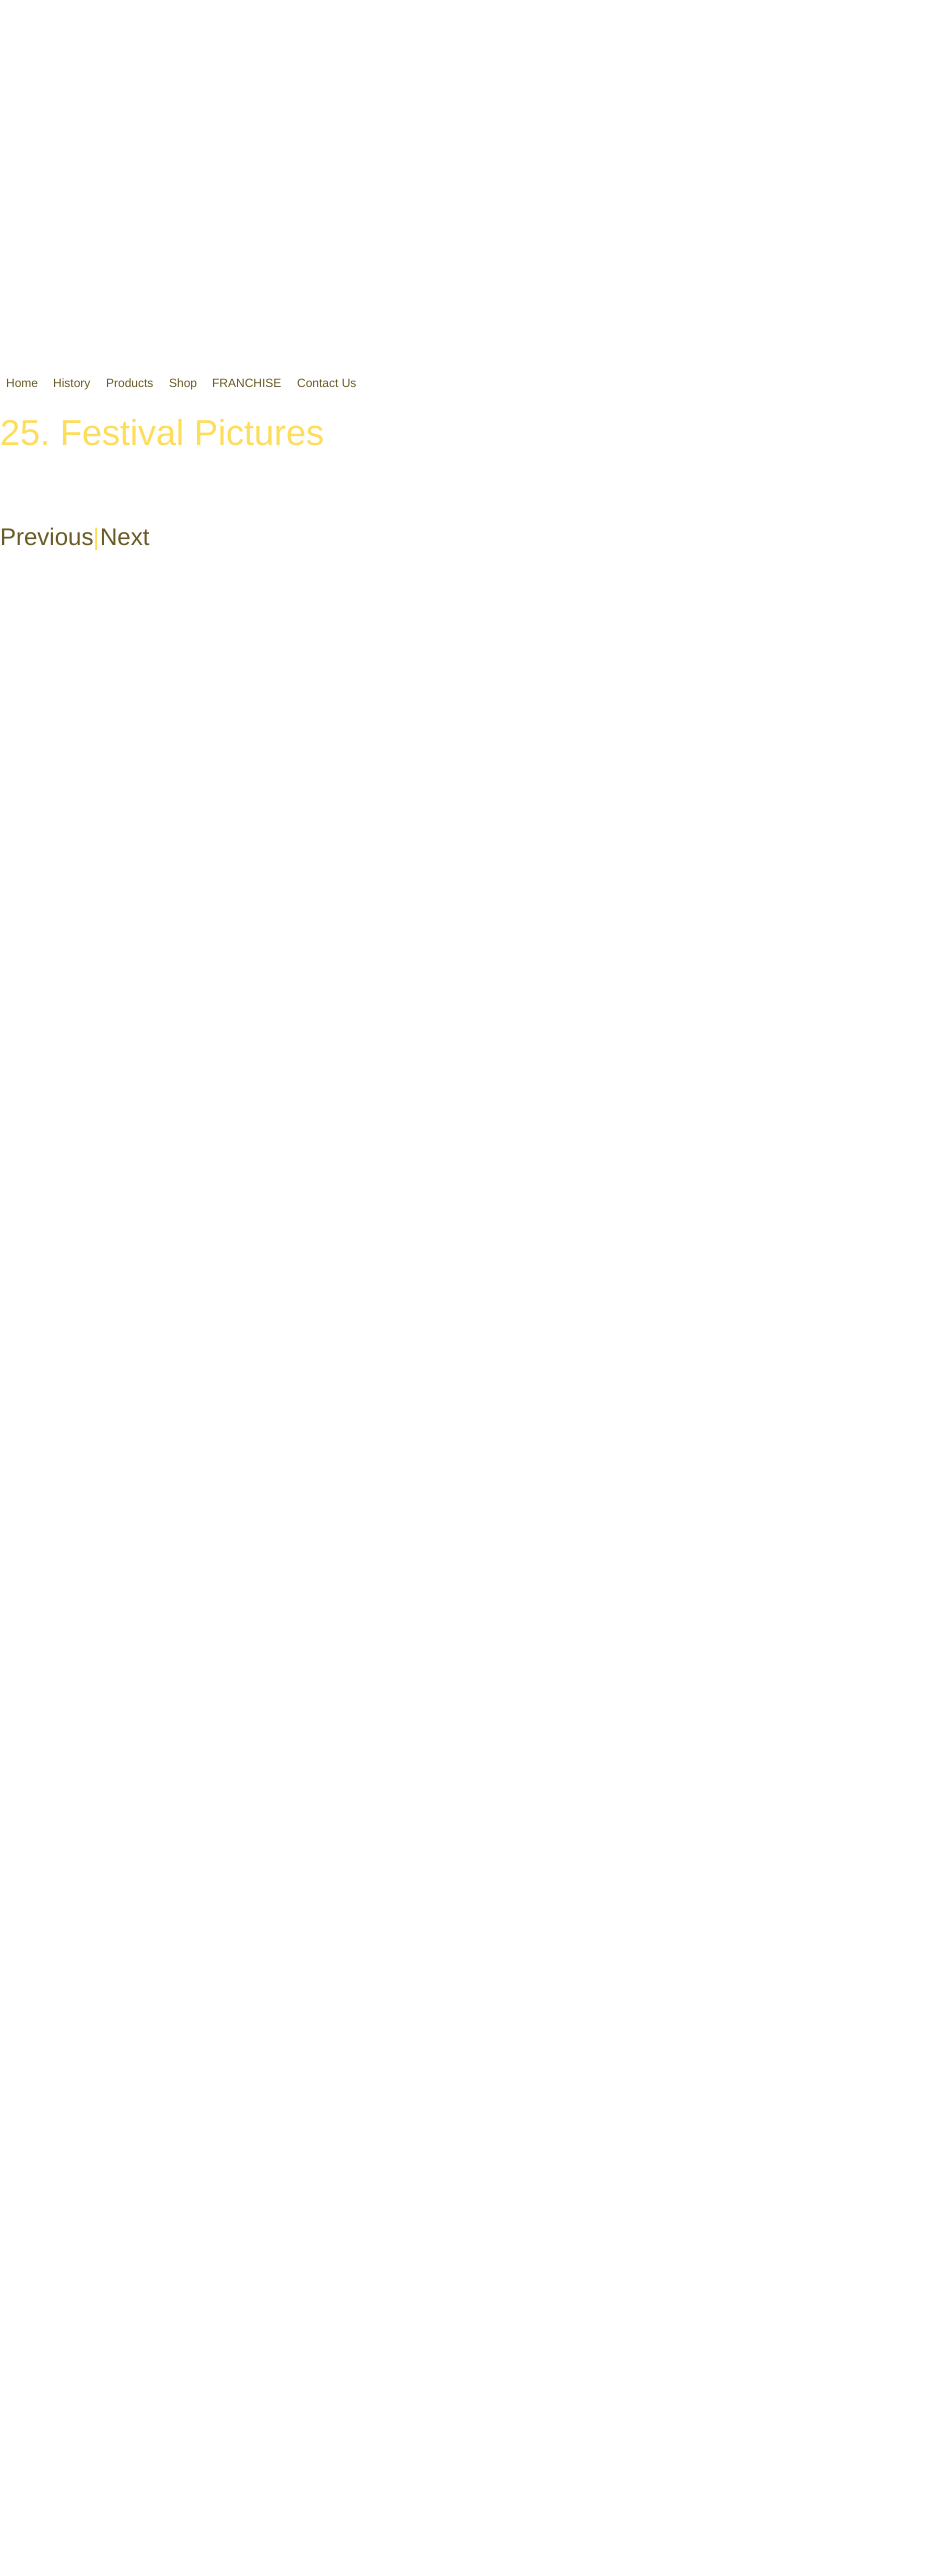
import math
import cairo



def draw(context):
    context.set_source_rgb(1, 1, 1)
    context.paint()
    context.select_font_face("Liberation Sans")
    context.set_font_size(12)
    context.set_source_rgb(105 / 255, 91 / 255, 37 / 255)
    context.move_to(6, 387)
    context.show_text("Home")
    context.move_to(53, 387)
    context.show_text("History")
    context.move_to(106, 387)
    context.show_text("Products")
    context.move_to(169, 387)
    context.show_text("Shop")
    context.move_to(212, 387)
    context.show_text("FRANCHISE")
    context.move_to(297, 387)
    context.show_text("Contact Us")
    context.set_font_size(36)
    context.set_source_rgb(254 / 255, 221 / 255, 91 / 255)
    context.move_to(0, 445)
    context.show_text("25. Festival Pictures")
    context.set_font_size(24)
    context.set_source_rgb(105 / 255, 91 / 255, 37 / 255)
    context.move_to(0, 545)
    context.show_text("Previous")
    context.set_source_rgb(254 / 255, 221 / 255, 91 / 255)
    context.move_to(93, 545)
    context.show_text("|")
    context.set_source_rgb(105 / 255, 91 / 255, 37 / 255)
    context.move_to(100, 545)
    context.show_text("Next")


surface = cairo.ImageSurface(cairo.Format.RGB24, 927, 2570)
context = cairo.Context(surface)
options = cairo.FontOptions()
options.set_hint_metrics(cairo.HintMetrics.OFF)
options.set_hint_style(cairo.HintStyle.NONE)
context.set_font_options(options)
context.set_miter_limit(4)
draw(context)
surface.write_to_png("out.png")
